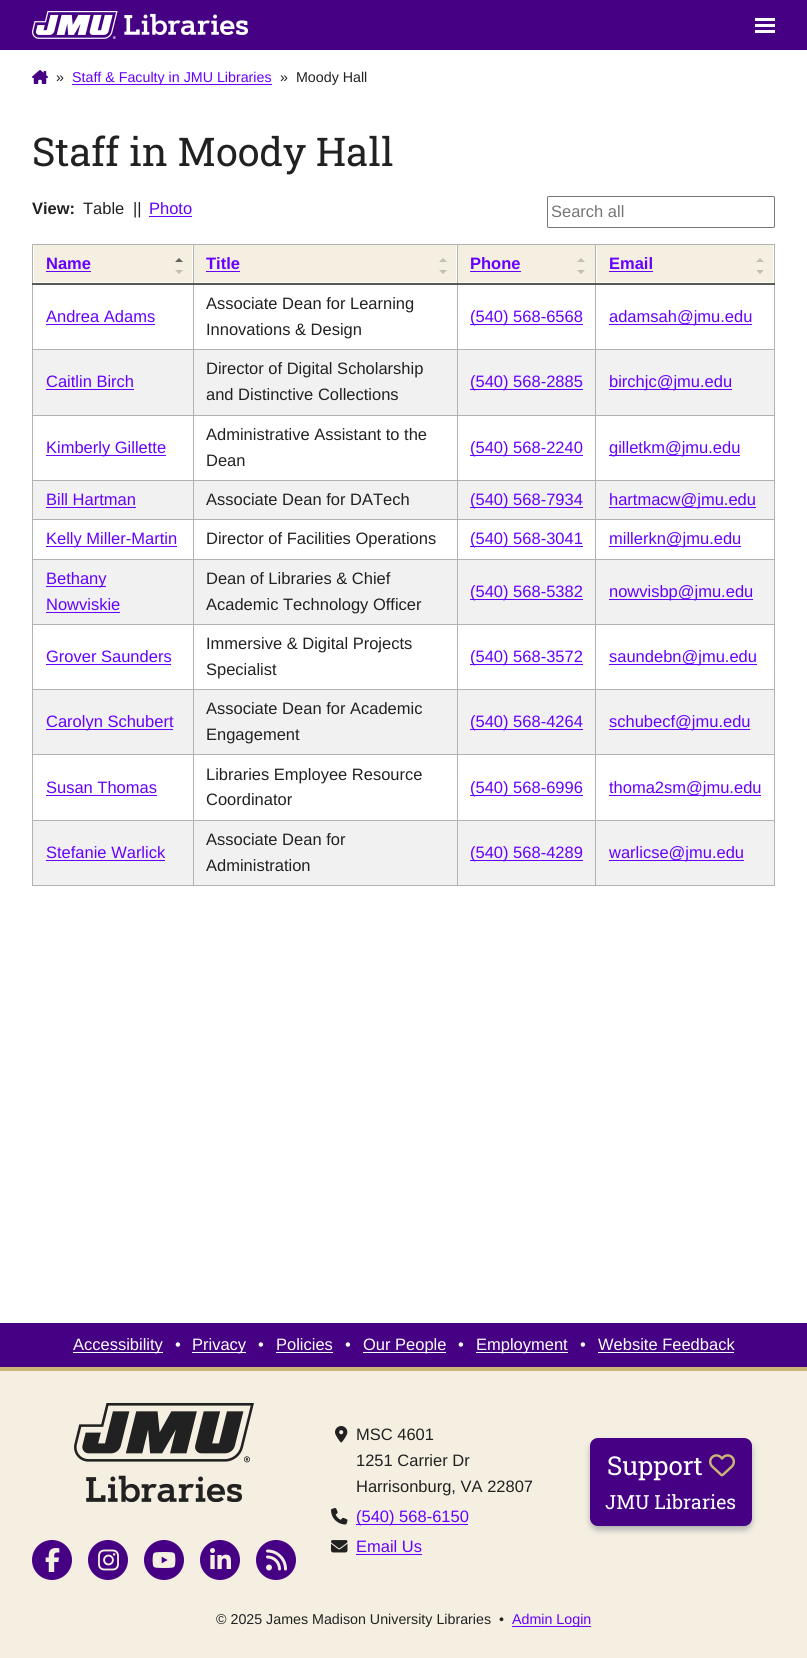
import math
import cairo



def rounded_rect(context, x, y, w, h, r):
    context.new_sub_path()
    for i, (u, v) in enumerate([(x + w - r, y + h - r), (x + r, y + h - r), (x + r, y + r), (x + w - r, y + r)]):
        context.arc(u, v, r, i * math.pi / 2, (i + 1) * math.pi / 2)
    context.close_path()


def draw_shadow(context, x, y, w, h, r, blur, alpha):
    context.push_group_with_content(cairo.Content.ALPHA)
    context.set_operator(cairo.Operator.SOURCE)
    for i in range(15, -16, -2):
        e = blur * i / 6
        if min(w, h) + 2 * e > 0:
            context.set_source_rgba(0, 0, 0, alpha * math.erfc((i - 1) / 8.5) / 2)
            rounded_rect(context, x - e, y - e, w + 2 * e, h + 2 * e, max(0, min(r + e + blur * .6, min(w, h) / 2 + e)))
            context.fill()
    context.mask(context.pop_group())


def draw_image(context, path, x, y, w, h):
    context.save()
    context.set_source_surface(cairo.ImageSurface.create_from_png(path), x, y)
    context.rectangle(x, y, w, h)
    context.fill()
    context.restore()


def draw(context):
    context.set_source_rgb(1, 1, 1)
    context.paint()
    context.set_source_rgb(69 / 255, 0, 132 / 255)
    context.rectangle(0, 0, 807, 50)
    context.fill()
    draw_image(context, "images/1.png", 32, 11, 216, 28)
    context.set_source_rgb(1, 1, 1)
    context.rectangle(755, 24, 20, 3)
    context.fill()
    context.rectangle(755, 18, 20, 3)
    context.fill()
    context.rectangle(755, 30, 20, 3)
    context.fill()
    draw_image(context, "images/2.png", 32, 70, 16, 14)
    context.set_source_rgb(102 / 255, 0, 1)
    context.rectangle(72, 84, 200, 1)
    context.fill()
    context.rectangle(149, 216, 43, 1)
    context.fill()
    rounded_rect(context, 547.5, 196.5, 227, 31, 1.5)
    context.set_source_rgb(118 / 255, 118 / 255, 118 / 255)
    context.set_line_width(1)
    context.stroke()
    context.set_source_rgb(244 / 255, 239 / 255, 225 / 255)
    context.rectangle(34, 245, 158, 37)
    context.fill()
    context.set_source_rgb(178 / 255, 178 / 255, 178 / 255)
    context.rectangle(595, 244, 180, 1)
    context.fill()
    context.rectangle(595, 349, 180, 1)
    context.fill()
    context.set_source_rgb(241 / 255, 241 / 255, 241 / 255)
    context.rectangle(33, 350, 741, 65)
    context.fill()
    context.set_source_rgb(178 / 255, 178 / 255, 178 / 255)
    context.rectangle(595, 415, 180, 1)
    context.fill()
    context.rectangle(595, 480, 180, 1)
    context.fill()
    context.set_source_rgb(241 / 255, 241 / 255, 241 / 255)
    context.rectangle(33, 481, 741, 38)
    context.fill()
    context.set_source_rgb(178 / 255, 178 / 255, 178 / 255)
    context.rectangle(595, 519, 180, 1)
    context.fill()
    context.rectangle(595, 559, 180, 1)
    context.fill()
    context.set_source_rgb(241 / 255, 241 / 255, 241 / 255)
    context.rectangle(33, 560, 741, 64)
    context.fill()
    context.set_source_rgb(178 / 255, 178 / 255, 178 / 255)
    context.rectangle(595, 624, 180, 1)
    context.fill()
    context.rectangle(595, 689, 180, 1)
    context.fill()
    context.set_source_rgb(241 / 255, 241 / 255, 241 / 255)
    context.rectangle(33, 690, 741, 64)
    context.fill()
    context.set_source_rgb(178 / 255, 178 / 255, 178 / 255)
    context.rectangle(595, 754, 180, 1)
    context.fill()
    context.rectangle(595, 820, 180, 1)
    context.fill()
    context.set_source_rgb(241 / 255, 241 / 255, 241 / 255)
    context.rectangle(33, 821, 741, 64)
    context.fill()
    context.set_source_rgb(178 / 255, 178 / 255, 178 / 255)
    context.rectangle(774, 820, 1, 66)
    context.fill()
    context.rectangle(595, 885, 180, 1)
    context.fill()
    context.rectangle(595, 820, 1, 66)
    context.fill()
    context.rectangle(457, 820, 139, 1)
    context.fill()
    context.rectangle(595, 754, 1, 67)
    context.fill()
    context.rectangle(457, 754, 139, 1)
    context.fill()
    context.rectangle(595, 689, 1, 66)
    context.fill()
    context.rectangle(457, 689, 139, 1)
    context.fill()
    context.rectangle(595, 624, 1, 66)
    context.fill()
    context.rectangle(457, 624, 139, 1)
    context.fill()
    context.rectangle(595, 559, 1, 66)
    context.fill()
    context.rectangle(457, 559, 139, 1)
    context.fill()
    context.rectangle(595, 519, 1, 41)
    context.fill()
    context.rectangle(457, 519, 139, 1)
    context.fill()
    context.rectangle(595, 480, 1, 40)
    context.fill()
    context.rectangle(457, 480, 139, 1)
    context.fill()
    context.rectangle(595, 415, 1, 66)
    context.fill()
    context.rectangle(457, 415, 139, 1)
    context.fill()
    context.rectangle(595, 349, 1, 67)
    context.fill()
    context.rectangle(457, 349, 139, 1)
    context.fill()
    context.rectangle(595, 284, 1, 66)
    context.fill()
    context.rectangle(595, 244, 1, 41)
    context.fill()
    context.rectangle(457, 244, 139, 1)
    context.fill()
    context.rectangle(457, 885, 139, 1)
    context.fill()
    context.rectangle(457, 820, 1, 66)
    context.fill()
    context.rectangle(193, 820, 265, 1)
    context.fill()
    context.rectangle(457, 754, 1, 67)
    context.fill()
    context.rectangle(193, 754, 265, 1)
    context.fill()
    context.rectangle(457, 689, 1, 66)
    context.fill()
    context.rectangle(193, 689, 265, 1)
    context.fill()
    context.rectangle(457, 624, 1, 66)
    context.fill()
    context.rectangle(193, 624, 265, 1)
    context.fill()
    context.rectangle(457, 559, 1, 66)
    context.fill()
    context.rectangle(193, 559, 265, 1)
    context.fill()
    context.rectangle(457, 519, 1, 41)
    context.fill()
    context.rectangle(193, 519, 265, 1)
    context.fill()
    context.rectangle(457, 480, 1, 40)
    context.fill()
    context.rectangle(193, 480, 265, 1)
    context.fill()
    context.rectangle(457, 415, 1, 66)
    context.fill()
    context.rectangle(193, 415, 265, 1)
    context.fill()
    context.rectangle(457, 349, 1, 67)
    context.fill()
    context.rectangle(193, 349, 265, 1)
    context.fill()
    context.rectangle(457, 284, 1, 66)
    context.fill()
    context.rectangle(457, 244, 1, 41)
    context.fill()
    context.rectangle(193, 244, 265, 1)
    context.fill()
    context.rectangle(193, 885, 265, 1)
    context.fill()
    context.rectangle(193, 820, 1, 66)
    context.fill()
    context.rectangle(32, 820, 162, 1)
    context.fill()
    context.rectangle(193, 754, 1, 67)
    context.fill()
    context.rectangle(32, 754, 162, 1)
    context.fill()
    context.rectangle(193, 689, 1, 66)
    context.fill()
    context.rectangle(32, 689, 162, 1)
    context.fill()
    context.rectangle(193, 624, 1, 66)
    context.fill()
    context.rectangle(32, 624, 162, 1)
    context.fill()
    context.rectangle(193, 559, 1, 66)
    context.fill()
    context.rectangle(32, 559, 162, 1)
    context.fill()
    context.rectangle(193, 519, 1, 41)
    context.fill()
    context.rectangle(32, 519, 162, 1)
    context.fill()
    context.rectangle(193, 480, 1, 40)
    context.fill()
    context.rectangle(32, 480, 162, 1)
    context.fill()
    context.rectangle(193, 415, 1, 66)
    context.fill()
    context.rectangle(32, 415, 162, 1)
    context.fill()
    context.rectangle(193, 349, 1, 67)
    context.fill()
    context.rectangle(32, 349, 162, 1)
    context.fill()
    context.rectangle(193, 284, 1, 66)
    context.fill()
    context.rectangle(193, 244, 1, 41)
    context.fill()
    context.rectangle(32, 244, 162, 1)
    context.fill()
    context.rectangle(32, 885, 162, 1)
    context.fill()
    context.rectangle(32, 820, 1, 66)
    context.fill()
    context.rectangle(32, 754, 1, 67)
    context.fill()
    context.rectangle(32, 689, 1, 66)
    context.fill()
    context.rectangle(32, 624, 1, 66)
    context.fill()
    context.rectangle(32, 559, 1, 66)
    context.fill()
    context.rectangle(32, 519, 1, 41)
    context.fill()
    context.rectangle(32, 480, 1, 40)
    context.fill()
    context.rectangle(32, 415, 1, 66)
    context.fill()
    context.rectangle(32, 284, 1, 132)
    context.fill()
    context.rectangle(32, 244, 1, 41)
    context.fill()
    context.set_source_rgb(102 / 255, 0, 1)
    context.rectangle(46, 271, 45, 1)
    context.fill()
    context.set_source_rgb(98 / 255, 96 / 255, 90 / 255)
    context.new_path()
    context.move_to(183, 262)
    context.line_to(175, 262)
    context.line_to(179, 258)
    context.close_path()
    context.fill()
    context.set_source_rgb(195 / 255, 191 / 255, 180 / 255)
    context.new_path()
    context.move_to(175, 270)
    context.line_to(183, 270)
    context.line_to(179, 274)
    context.close_path()
    context.fill()
    context.set_source_rgb(244 / 255, 239 / 255, 225 / 255)
    context.rectangle(194, 245, 262, 37)
    context.fill()
    context.set_source_rgb(102 / 255, 0, 1)
    context.rectangle(206, 271, 34, 1)
    context.fill()
    context.set_source_rgb(195 / 255, 191 / 255, 180 / 255)
    context.new_path()
    context.move_to(439, 270)
    context.line_to(447, 270)
    context.line_to(443, 274)
    context.close_path()
    context.move_to(447, 262)
    context.line_to(439, 262)
    context.line_to(443, 258)
    context.close_path()
    context.fill()
    context.set_source_rgb(244 / 255, 239 / 255, 225 / 255)
    context.rectangle(458, 245, 137, 37)
    context.fill()
    context.set_source_rgb(102 / 255, 0, 1)
    context.rectangle(470, 271, 51, 1)
    context.fill()
    context.set_source_rgb(195 / 255, 191 / 255, 180 / 255)
    context.new_path()
    context.move_to(577, 270)
    context.line_to(585, 270)
    context.line_to(581, 274)
    context.close_path()
    context.move_to(585, 262)
    context.line_to(577, 262)
    context.line_to(581, 258)
    context.close_path()
    context.fill()
    context.set_source_rgb(244 / 255, 239 / 255, 225 / 255)
    context.rectangle(597, 245, 176, 37)
    context.fill()
    context.set_source_rgb(178 / 255, 178 / 255, 178 / 255)
    context.rectangle(774, 754, 1, 67)
    context.fill()
    context.rectangle(774, 689, 1, 66)
    context.fill()
    context.rectangle(774, 624, 1, 66)
    context.fill()
    context.rectangle(774, 559, 1, 66)
    context.fill()
    context.rectangle(774, 519, 1, 41)
    context.fill()
    context.rectangle(774, 480, 1, 40)
    context.fill()
    context.rectangle(774, 415, 1, 66)
    context.fill()
    context.rectangle(774, 284, 1, 132)
    context.fill()
    context.rectangle(774, 244, 1, 41)
    context.fill()
    context.set_source_rgb(89 / 255, 89 / 255, 89 / 255)
    context.rectangle(32, 283, 743, 2)
    context.fill()
    context.set_source_rgb(102 / 255, 0, 1)
    context.rectangle(609, 271, 44, 1)
    context.fill()
    context.set_source_rgb(195 / 255, 191 / 255, 180 / 255)
    context.new_path()
    context.move_to(756, 270)
    context.line_to(764, 270)
    context.line_to(760, 274)
    context.close_path()
    context.move_to(764, 262)
    context.line_to(756, 262)
    context.line_to(760, 258)
    context.close_path()
    context.fill()
    context.set_source_rgb(102 / 255, 0, 1)
    context.rectangle(46, 324, 109, 1)
    context.fill()
    context.rectangle(470, 324, 113, 1)
    context.fill()
    context.rectangle(609, 324, 143, 1)
    context.fill()
    context.rectangle(46, 389, 88, 1)
    context.fill()
    context.rectangle(470, 389, 113, 1)
    context.fill()
    context.rectangle(609, 389, 123, 1)
    context.fill()
    context.rectangle(46, 455, 120, 1)
    context.fill()
    context.rectangle(470, 455, 113, 1)
    context.fill()
    context.rectangle(609, 455, 131, 1)
    context.fill()
    context.rectangle(46, 507, 90, 1)
    context.fill()
    context.rectangle(470, 507, 113, 1)
    context.fill()
    context.rectangle(609, 507, 147, 1)
    context.fill()
    context.rectangle(46, 546, 131, 1)
    context.fill()
    context.rectangle(470, 546, 113, 1)
    context.fill()
    context.rectangle(609, 546, 132, 1)
    context.fill()
    context.rectangle(46, 586, 60, 1)
    context.fill()
    context.rectangle(46, 612, 74, 1)
    context.fill()
    context.rectangle(470, 599, 113, 1)
    context.fill()
    context.rectangle(609, 599, 144, 1)
    context.fill()
    context.rectangle(46, 664, 125, 1)
    context.fill()
    context.rectangle(470, 664, 113, 1)
    context.fill()
    context.rectangle(609, 664, 148, 1)
    context.fill()
    context.rectangle(46, 729, 127, 1)
    context.fill()
    context.rectangle(470, 729, 113, 1)
    context.fill()
    context.rectangle(609, 729, 141, 1)
    context.fill()
    context.rectangle(46, 795, 111, 1)
    context.fill()
    context.rectangle(470, 795, 113, 1)
    context.fill()
    context.rectangle(609, 795, 152, 1)
    context.fill()
    context.rectangle(46, 860, 119, 1)
    context.fill()
    context.rectangle(470, 860, 113, 1)
    context.fill()
    context.rectangle(609, 860, 135, 1)
    context.fill()
    context.set_source_rgb(244 / 255, 239 / 255, 225 / 255)
    context.rectangle(0, 1371, 807, 287)
    context.fill()
    context.set_source_rgb(69 / 255, 0, 132 / 255)
    context.rectangle(0, 1323, 807, 44)
    context.fill()
    context.set_source_rgb(203 / 255, 182 / 255, 119 / 255)
    context.rectangle(0, 1367, 807, 4)
    context.fill()
    context.set_source_rgb(1, 1, 1)
    context.rectangle(73, 1352, 90, 1)
    context.fill()
    context.rectangle(192, 1352, 54, 1)
    context.fill()
    context.rectangle(276, 1352, 57, 1)
    context.fill()
    context.rectangle(363, 1352, 83, 1)
    context.fill()
    context.rectangle(476, 1352, 92, 1)
    context.fill()
    context.rectangle(598, 1352, 136, 1)
    context.fill()
    draw_image(context, "images/3.png", 74, 1403, 180, 99)
    context.set_source_rgb(69 / 255, 0, 132 / 255)
    context.arc(52, 1560, 20, 0, 2 * math.pi)
    context.fill()
    draw_image(context, "images/4.png", 45, 1548, 15, 24)
    context.arc(108, 1560, 20, 0, 2 * math.pi)
    context.fill()
    draw_image(context, "images/5.png", 98, 1549, 21, 22)
    context.arc(164, 1560, 20, 0, 2 * math.pi)
    context.fill()
    draw_image(context, "images/6.png", 152, 1552, 24, 16)
    context.arc(220, 1560, 20, 0, 2 * math.pi)
    context.fill()
    draw_image(context, "images/7.png", 210, 1548, 21, 21)
    context.arc(276, 1560, 20, 0, 2 * math.pi)
    context.fill()
    draw_image(context, "images/8.png", 266, 1549, 21, 22)
    draw_image(context, "images/9.png", 335, 1426, 13, 17)
    draw_image(context, "images/10.png", 331, 1508, 17, 17)
    context.set_source_rgb(102 / 255, 0, 1)
    context.rectangle(356, 1524, 112, 1)
    context.fill()
    draw_image(context, "images/11.png", 331, 1540, 17, 13)
    context.rectangle(356, 1554, 66, 1)
    context.fill()
    context.set_source_rgb(178 / 255, 178 / 255, 178 / 255)
    draw_shadow(context, 590, 1442, 162, 88, 8, 3, 1)
    context.set_source_rgb(69 / 255, 0, 132 / 255)
    rounded_rect(context, 591.5, 1439.5, 159, 85, 6.5)
    context.fill_preserve()
    context.set_line_width(3)
    context.stroke()
    draw_image(context, "images/12.png", 709, 1454, 26, 23)
    context.set_source_rgb(102 / 255, 0, 1)
    context.rectangle(512, 1626, 79, 1)
    context.fill()
    context.select_font_face("Liberation Sans")
    context.set_font_size(14.25)
    context.set_source_rgb(33 / 255, 33 / 255, 33 / 255)
    context.move_to(56, 82)
    context.show_text("»")
    context.set_source_rgb(102 / 255, 0, 1)
    context.move_to(72, 82)
    context.show_text("Staff & Faculty in JMU Libraries")
    context.set_source_rgb(33 / 255, 33 / 255, 33 / 255)
    context.move_to(280, 82)
    context.show_text("»")
    context.move_to(296, 82)
    context.show_text("Moody Hall")
    context.select_font_face("Roboto Slab")
    context.set_font_size(39.6)
    context.move_to(32, 166)
    context.show_text("Staff in Moody Hall")
    context.select_font_face("Liberation Sans", cairo.FontSlant.NORMAL, cairo.FontWeight.BOLD)
    context.set_font_size(16.5)
    context.move_to(32, 214)
    context.show_text("View:")
    context.select_font_face("Liberation Sans")
    context.move_to(83, 214)
    context.show_text("Table")
    context.move_to(133, 214)
    context.show_text("||")
    context.set_source_rgb(102 / 255, 0, 1)
    context.move_to(149, 214)
    context.show_text("Photo")
    context.set_source_rgb(117 / 255, 117 / 255, 117 / 255)
    context.move_to(551, 217)
    context.show_text("Search all")
    context.select_font_face("Liberation Sans", cairo.FontSlant.NORMAL, cairo.FontWeight.BOLD)
    context.set_source_rgb(102 / 255, 0, 1)
    context.move_to(46, 269)
    context.show_text("Name")
    context.move_to(206, 269)
    context.show_text("Title")
    context.move_to(470, 269)
    context.show_text("Phone")
    context.move_to(609, 269)
    context.show_text("Email")
    context.select_font_face("Liberation Sans")
    context.move_to(46, 322)
    context.show_text("Andrea Adams")
    context.set_source_rgb(33 / 255, 33 / 255, 33 / 255)
    context.move_to(206, 309)
    context.show_text("Associate Dean for Learning")
    context.move_to(206, 335)
    context.show_text("Innovations & Design")
    context.set_source_rgb(102 / 255, 0, 1)
    context.move_to(470, 322)
    context.show_text("(540) 568-6568")
    context.move_to(609, 322)
    context.show_text("adamsah@jmu.edu")
    context.move_to(46, 387)
    context.show_text("Caitlin Birch")
    context.set_source_rgb(33 / 255, 33 / 255, 33 / 255)
    context.move_to(206, 374)
    context.show_text("Director of Digital Scholarship")
    context.move_to(206, 400)
    context.show_text("and Distinctive Collections")
    context.set_source_rgb(102 / 255, 0, 1)
    context.move_to(470, 387)
    context.show_text("(540) 568-2885")
    context.move_to(609, 387)
    context.show_text("birchjc@jmu.edu")
    context.move_to(46, 453)
    context.show_text("Kimberly Gillette")
    context.set_source_rgb(33 / 255, 33 / 255, 33 / 255)
    context.move_to(206, 440)
    context.show_text("Administrative Assistant to the")
    context.move_to(206, 466)
    context.show_text("Dean")
    context.set_source_rgb(102 / 255, 0, 1)
    context.move_to(470, 453)
    context.show_text("(540) 568-2240")
    context.move_to(609, 453)
    context.show_text("gilletkm@jmu.edu")
    context.move_to(46, 505)
    context.show_text("Bill Hartman")
    context.set_source_rgb(33 / 255, 33 / 255, 33 / 255)
    context.move_to(206, 505)
    context.show_text("Associate Dean for DATech")
    context.set_source_rgb(102 / 255, 0, 1)
    context.move_to(470, 505)
    context.show_text("(540) 568-7934")
    context.move_to(609, 505)
    context.show_text("hartmacw@jmu.edu")
    context.move_to(46, 544)
    context.show_text("Kelly Miller-Martin")
    context.set_source_rgb(33 / 255, 33 / 255, 33 / 255)
    context.move_to(206, 544)
    context.show_text("Director of Facilities Operations")
    context.set_source_rgb(102 / 255, 0, 1)
    context.move_to(470, 544)
    context.show_text("(540) 568-3041")
    context.move_to(609, 544)
    context.show_text("millerkn@jmu.edu")
    context.move_to(46, 584)
    context.show_text("Bethany")
    context.move_to(46, 610)
    context.show_text("Nowviskie")
    context.set_source_rgb(33 / 255, 33 / 255, 33 / 255)
    context.move_to(206, 584)
    context.show_text("Dean of Libraries & Chief")
    context.move_to(206, 610)
    context.show_text("Academic Technology Officer")
    context.set_source_rgb(102 / 255, 0, 1)
    context.move_to(470, 597)
    context.show_text("(540) 568-5382")
    context.move_to(609, 597)
    context.show_text("nowvisbp@jmu.edu")
    context.move_to(46, 662)
    context.show_text("Grover Saunders")
    context.set_source_rgb(33 / 255, 33 / 255, 33 / 255)
    context.move_to(206, 649)
    context.show_text("Immersive & Digital Projects")
    context.move_to(206, 675)
    context.show_text("Specialist")
    context.set_source_rgb(102 / 255, 0, 1)
    context.move_to(470, 662)
    context.show_text("(540) 568-3572")
    context.move_to(609, 662)
    context.show_text("saundebn@jmu.edu")
    context.move_to(46, 727)
    context.show_text("Carolyn Schubert")
    context.set_source_rgb(33 / 255, 33 / 255, 33 / 255)
    context.move_to(206, 714)
    context.show_text("Associate Dean for Academic")
    context.move_to(206, 740)
    context.show_text("Engagement")
    context.set_source_rgb(102 / 255, 0, 1)
    context.move_to(470, 727)
    context.show_text("(540) 568-4264")
    context.move_to(609, 727)
    context.show_text("schubecf@jmu.edu")
    context.move_to(46, 793)
    context.show_text("Susan Thomas")
    context.set_source_rgb(33 / 255, 33 / 255, 33 / 255)
    context.move_to(206, 780)
    context.show_text("Libraries Employee Resource")
    context.move_to(206, 805)
    context.show_text("Coordinator")
    context.set_source_rgb(102 / 255, 0, 1)
    context.move_to(470, 793)
    context.show_text("(540) 568-6996")
    context.move_to(609, 793)
    context.show_text("thoma2sm@jmu.edu")
    context.move_to(46, 858)
    context.show_text("Stefanie Warlick")
    context.set_source_rgb(33 / 255, 33 / 255, 33 / 255)
    context.move_to(206, 845)
    context.show_text("Associate Dean for")
    context.move_to(206, 871)
    context.show_text("Administration")
    context.set_source_rgb(102 / 255, 0, 1)
    context.move_to(470, 858)
    context.show_text("(540) 568-4289")
    context.move_to(609, 858)
    context.show_text("warlicse@jmu.edu")
    context.set_source_rgb(1, 1, 1)
    context.move_to(73, 1350)
    context.show_text("Accessibility")
    context.move_to(175, 1350)
    context.show_text("•")
    context.move_to(192, 1350)
    context.show_text("Privacy")
    context.move_to(258, 1350)
    context.show_text("•")
    context.move_to(276, 1350)
    context.show_text("Policies")
    context.move_to(345, 1350)
    context.show_text("•")
    context.move_to(363, 1350)
    context.show_text("Our People")
    context.move_to(458, 1350)
    context.show_text("•")
    context.move_to(476, 1350)
    context.show_text("Employment")
    context.move_to(580, 1350)
    context.show_text("•")
    context.move_to(598, 1350)
    context.show_text("Website Feedback")
    context.set_source_rgb(33 / 255, 33 / 255, 33 / 255)
    context.move_to(356, 1440)
    context.show_text("MSC 4601")
    context.move_to(356, 1466)
    context.show_text("1251 Carrier Dr")
    context.move_to(356, 1492)
    context.show_text("Harrisonburg, VA 22807")
    context.set_source_rgb(102 / 255, 0, 1)
    context.move_to(356, 1522)
    context.show_text("(540) 568-6150")
    context.move_to(356, 1552)
    context.show_text("Email Us")
    context.select_font_face("Roboto Slab")
    context.set_font_size(26)
    context.set_source_rgb(1, 1, 1)
    context.move_to(607, 1475)
    context.show_text("Support")
    context.set_font_size(19.5)
    context.move_to(605, 1509)
    context.show_text("JMU Libraries")
    context.select_font_face("Liberation Sans")
    context.set_font_size(14.25)
    context.set_source_rgb(33 / 255, 33 / 255, 33 / 255)
    context.move_to(216, 1624)
    context.show_text("© 2025 James Madison University Libraries")
    context.move_to(499, 1624)
    context.show_text("•")
    context.set_source_rgb(102 / 255, 0, 1)
    context.move_to(512, 1624)
    context.show_text("Admin Login")


surface = cairo.ImageSurface(cairo.Format.RGB24, 807, 1658)
context = cairo.Context(surface)
options = cairo.FontOptions()
options.set_hint_metrics(cairo.HintMetrics.OFF)
options.set_hint_style(cairo.HintStyle.NONE)
context.set_font_options(options)
context.set_miter_limit(4)
draw(context)
surface.write_to_png("out.png")
